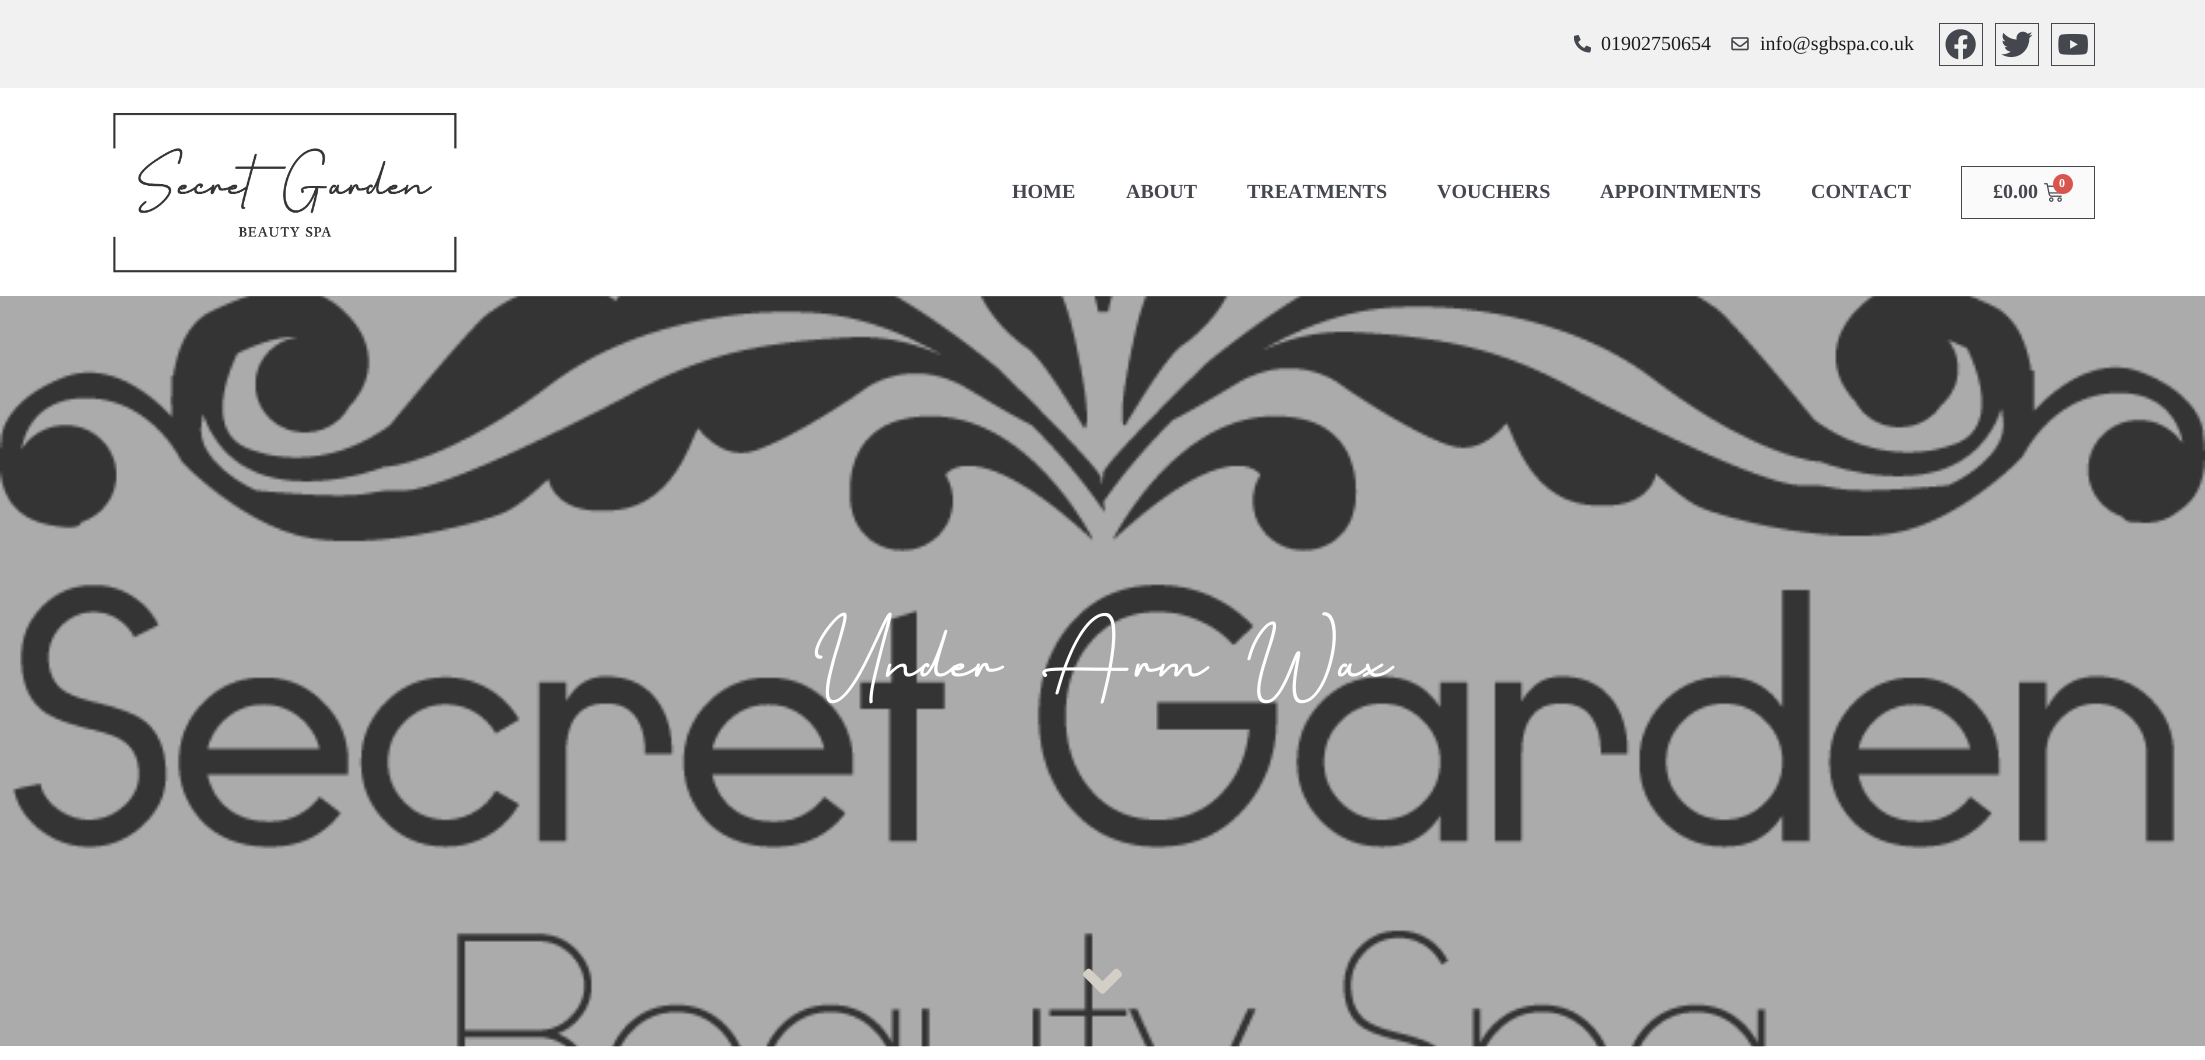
import math
import cairo



def draw_image(context, path, x, y, w, h):
    context.save()
    context.set_source_surface(cairo.ImageSurface.create_from_png(path), x, y)
    context.rectangle(x, y, w, h)
    context.fill()
    context.restore()


def draw(context):
    context.set_source_rgb(1, 1, 1)
    context.paint()
    context.set_source_rgb(172 / 255, 171 / 255, 171 / 255)
    context.rectangle(0, 296, 2205, 750)
    context.fill()
    context.set_source_rgb(241 / 255, 241 / 255, 241 / 255)
    context.rectangle(0, 0, 2205, 88)
    context.fill()
    draw_image(context, "images/1.png", 1574, 35, 17, 18)
    draw_image(context, "images/2.png", 1731, 37, 18, 14)
    context.rectangle(1939.5, 23.5, 43, 42)
    context.set_source_rgb(69 / 255, 71 / 255, 79 / 255)
    context.set_line_width(1)
    context.stroke()
    draw_image(context, "images/3.png", 1945, 29, 31, 31)
    context.rectangle(1995.5, 23.5, 43, 42)
    context.stroke()
    draw_image(context, "images/4.png", 2001, 31, 32, 27)
    context.rectangle(2051.5, 23.5, 43, 42)
    context.stroke()
    draw_image(context, "images/5.png", 2058, 33, 30, 22)
    draw_image(context, "images/6.png", 113, 113, 344, 160)
    context.set_source_rgb(250 / 255, 250 / 255, 250 / 255)
    context.rectangle(1961.5, 166.5, 133, 52)
    context.fill_preserve()
    context.set_source_rgb(69 / 255, 71 / 255, 79 / 255)
    context.stroke()
    draw_image(context, "images/7.png", 2044, 183, 18, 19)
    context.set_source_rgb(217 / 255, 83 / 255, 79 / 255)
    context.arc(2063, 184, 10, 0, 2 * math.pi)
    context.fill()
    draw_image(context, "images/8.png", 0, 296, 2205, 751)
    draw_image(context, "images/9.png", 1083, 968, 39, 26)
    context.select_font_face("Liberation Serif")
    context.set_font_size(20)
    context.set_source_rgb(28 / 255, 28 / 255, 28 / 255)
    context.move_to(1601, 50)
    context.show_text("01902750654")
    context.move_to(1760, 50)
    context.show_text("info@sgbspa.co.uk")
    context.select_font_face("Liberation Serif", cairo.FontSlant.NORMAL, cairo.FontWeight.BOLD)
    context.set_source_rgb(69 / 255, 71 / 255, 79 / 255)
    context.move_to(1012, 198)
    context.show_text("HOME")
    context.move_to(1126, 198)
    context.show_text("ABOUT")
    context.move_to(1247, 198)
    context.show_text("TREATMENTS")
    context.move_to(1437, 198)
    context.show_text("VOUCHERS")
    context.move_to(1600, 198)
    context.show_text("APPOINTMENTS")
    context.move_to(1811, 198)
    context.show_text("CONTACT")
    context.set_font_size(12)
    context.set_source_rgb(1, 1, 1)
    context.move_to(2059, 187)
    context.show_text("0")
    context.set_font_size(20)
    context.set_source_rgb(69 / 255, 71 / 255, 79 / 255)
    context.move_to(1993, 198)
    context.show_text("£0.00")
    context.select_font_face("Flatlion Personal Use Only")
    context.set_font_size(160)
    context.set_source_rgb(1, 1, 1)
    context.move_to(813, 705)
    context.show_text("Under Arm Wax")


surface = cairo.ImageSurface(cairo.Format.RGB24, 2205, 1060)
context = cairo.Context(surface)
options = cairo.FontOptions()
options.set_hint_metrics(cairo.HintMetrics.OFF)
options.set_hint_style(cairo.HintStyle.NONE)
context.set_font_options(options)
context.set_miter_limit(4)
draw(context)
surface.write_to_png("out.png")
